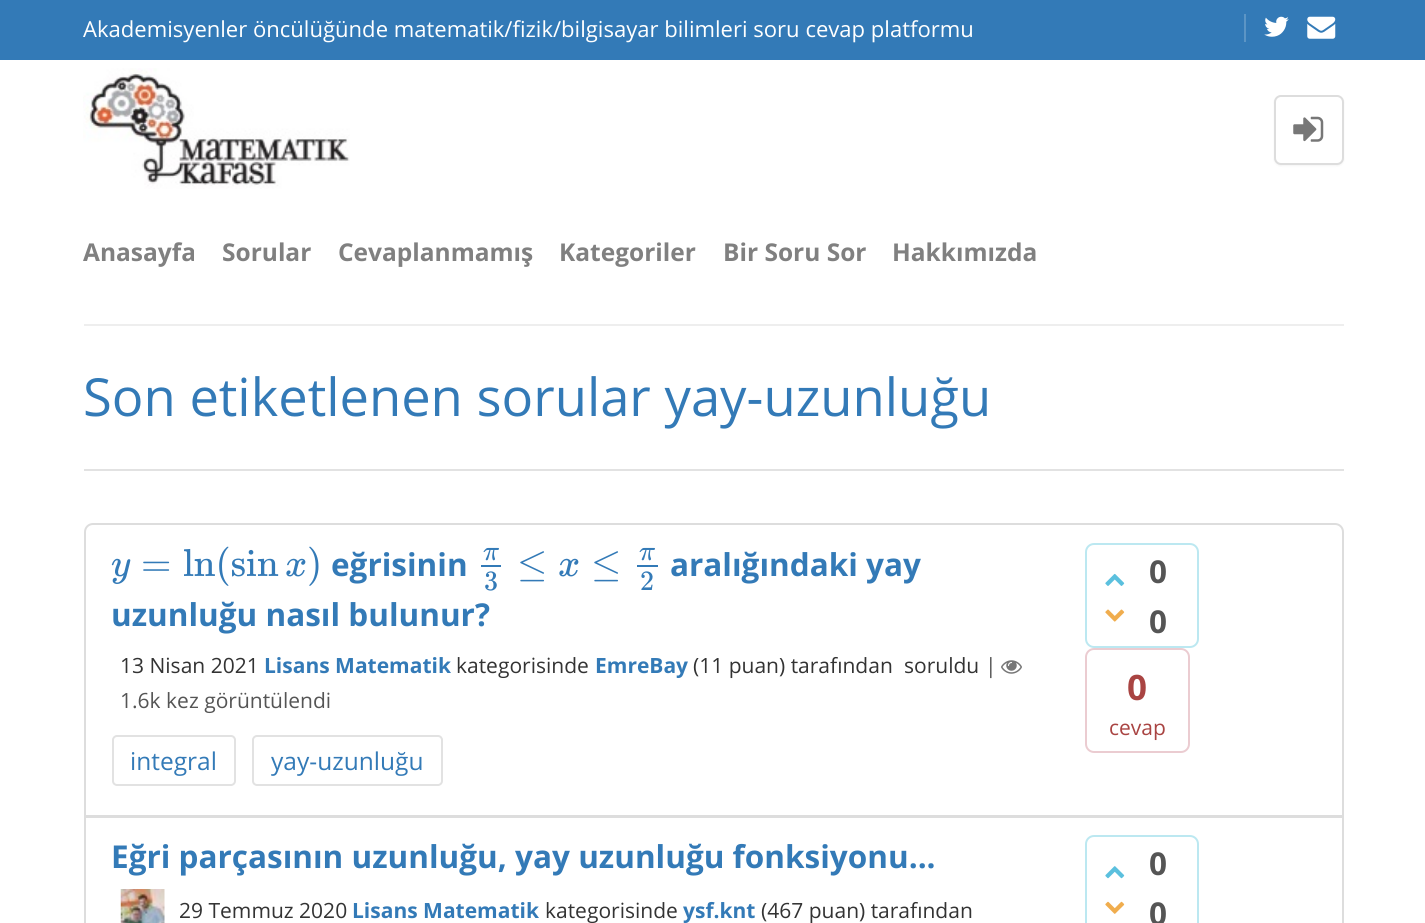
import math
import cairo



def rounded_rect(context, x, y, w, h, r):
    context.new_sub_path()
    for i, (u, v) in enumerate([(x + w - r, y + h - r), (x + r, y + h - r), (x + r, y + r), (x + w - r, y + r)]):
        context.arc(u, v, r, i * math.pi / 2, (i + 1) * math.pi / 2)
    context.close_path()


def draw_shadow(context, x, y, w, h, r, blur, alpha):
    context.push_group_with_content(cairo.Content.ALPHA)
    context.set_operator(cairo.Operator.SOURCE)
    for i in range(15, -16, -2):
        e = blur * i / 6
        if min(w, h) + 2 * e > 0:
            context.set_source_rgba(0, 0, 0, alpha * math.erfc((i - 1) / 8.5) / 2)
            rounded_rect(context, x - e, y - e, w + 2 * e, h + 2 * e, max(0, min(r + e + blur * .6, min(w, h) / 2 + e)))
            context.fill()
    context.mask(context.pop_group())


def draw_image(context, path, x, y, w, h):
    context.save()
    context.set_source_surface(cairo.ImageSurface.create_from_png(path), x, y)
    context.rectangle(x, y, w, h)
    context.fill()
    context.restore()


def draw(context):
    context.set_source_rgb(1, 1, 1)
    context.paint()
    context.set_source_rgb(51 / 255, 122 / 255, 183 / 255)
    context.rectangle(0, 0, 1425, 60)
    context.fill()
    context.set_source_rgb(92 / 255, 149 / 255, 197 / 255)
    context.rectangle(1244, 14, 2, 28)
    context.fill()
    draw_image(context, "images/1.png", 1264, 16, 25, 21)
    draw_image(context, "images/2.png", 1307, 16, 29, 23)
    draw_image(context, "images/3.png", 83, 68, 267, 121)
    context.set_source_rgb(0, 0, 0)
    draw_shadow(context, 1274, 96, 70, 70, 7, 1, 0.05)
    context.set_source_rgb(1, 1, 1)
    rounded_rect(context, 1275, 96, 68, 68, 6)
    context.fill_preserve()
    context.set_source_rgb(221 / 255, 221 / 255, 221 / 255)
    context.stroke()
    draw_image(context, "images/4.png", 1293, 116, 31, 26)
    context.set_source_rgb(238 / 255, 238 / 255, 238 / 255)
    context.rectangle(84, 324, 1260, 2)
    context.fill()
    context.set_source_rgb(226 / 255, 226 / 255, 226 / 255)
    context.rectangle(84, 469, 1260, 2)
    context.fill()
    context.new_path()
    context.move_to(93, 524)
    context.line_to(1335, 524)
    context.curve_to(1339.5, 524, 1343, 527.5, 1343, 532)
    context.line_to(1343, 816)
    context.line_to(85, 816)
    context.line_to(85, 532)
    context.curve_to(85, 527.5, 88.5, 524, 93, 524)
    context.close_path()
    context.set_source_rgb(221 / 255, 221 / 255, 221 / 255)
    context.stroke()
    context.set_source_rgb(51 / 255, 122 / 255, 183 / 255)
    context.rectangle(481, 565, 20, 2)
    context.fill()
    context.rectangle(637, 565, 21, 2)
    context.fill()
    draw_image(context, "images/5.png", 1001, 660, 21, 14)
    rounded_rect(context, 113, 736, 122, 49, 4)
    context.set_source_rgb(226 / 255, 226 / 255, 226 / 255)
    context.stroke()
    rounded_rect(context, 253, 736, 189, 49, 4)
    context.stroke()
    rounded_rect(context, 1086, 544, 112, 103, 8)
    context.set_source_rgb(188 / 255, 232 / 255, 241 / 255)
    context.stroke()
    draw_image(context, "images/6.png", 1105, 573, 20, 13)
    draw_image(context, "images/7.png", 1105, 609, 20, 13)
    rounded_rect(context, 1086, 649, 103, 103, 8)
    context.set_source_rgb(235 / 255, 204 / 255, 209 / 255)
    context.stroke()
    context.rectangle(85, 817, 1258, 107)
    context.set_source_rgb(221 / 255, 221 / 255, 221 / 255)
    context.stroke()
    draw_image(context, "images/8.png", 120, 889, 45, 34)
    rounded_rect(context, 1086, 836, 112, 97, 8)
    context.set_source_rgb(188 / 255, 232 / 255, 241 / 255)
    context.stroke()
    draw_image(context, "images/9.png", 1105, 866, 20, 13)
    draw_image(context, "images/10.png", 1105, 901, 20, 13)
    context.select_font_face("Open Sans")
    context.set_font_size(22.05)
    context.set_source_rgb(1, 1, 1)
    context.move_to(83, 37)
    context.show_text("Akademisyenler öncülüğünde matematik/fizik/bilgisayar bilimleri soru cevap platformu")
    context.select_font_face("Open Sans", cairo.FontSlant.NORMAL, cairo.FontWeight.BOLD)
    context.set_font_size(24.5)
    context.set_source_rgb(128 / 255, 128 / 255, 128 / 255)
    context.move_to(83, 261)
    context.show_text("Anasayfa")
    context.move_to(222, 261)
    context.show_text("Sorular")
    context.move_to(338, 261)
    context.show_text("Cevaplanmamış")
    context.move_to(559, 261)
    context.show_text("Kategoriler")
    context.move_to(723, 261)
    context.show_text("Bir Soru Sor")
    context.move_to(892, 261)
    context.show_text("Hakkımızda")
    context.select_font_face("Open Sans")
    context.set_font_size(52.5)
    context.set_source_rgb(51 / 255, 122 / 255, 183 / 255)
    context.move_to(83, 416)
    context.show_text("Son etiketlenen sorular yay-uzunluğu")
    context.select_font_face("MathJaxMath", cairo.FontSlant.ITALIC)
    context.set_font_size(39)
    context.move_to(111, 576)
    context.show_text("y")
    context.select_font_face("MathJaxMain")
    context.move_to(141, 576)
    context.show_text("=")
    context.move_to(183, 576)
    context.show_text("ln(sin")
    context.select_font_face("MathJaxMath", cairo.FontSlant.ITALIC)
    context.move_to(285, 576)
    context.show_text("x")
    context.select_font_face("MathJaxMain")
    context.move_to(307, 576)
    context.show_text(")")
    context.select_font_face("Open Sans", cairo.FontSlant.NORMAL, cairo.FontWeight.BOLD)
    context.set_font_size(31.5)
    context.move_to(331, 576)
    context.show_text("eğrisinin")
    context.select_font_face("MathJaxMath", cairo.FontSlant.ITALIC)
    context.set_font_size(28)
    context.move_to(483, 560)
    context.show_text("π")
    context.select_font_face("MathJaxMain")
    context.move_to(484, 590)
    context.show_text("3")
    context.set_font_size(39)
    context.move_to(517, 576)
    context.show_text("≤")
    context.select_font_face("MathJaxMath", cairo.FontSlant.ITALIC)
    context.move_to(558, 576)
    context.show_text("x")
    context.select_font_face("MathJaxMain")
    context.move_to(591, 576)
    context.show_text("≤")
    context.select_font_face("MathJaxMath", cairo.FontSlant.ITALIC)
    context.set_font_size(28)
    context.move_to(639, 560)
    context.show_text("π")
    context.select_font_face("MathJaxMain")
    context.move_to(640, 590)
    context.show_text("2")
    context.select_font_face("Open Sans", cairo.FontSlant.NORMAL, cairo.FontWeight.BOLD)
    context.set_font_size(31.5)
    context.move_to(670, 576)
    context.show_text("aralığındaki yay")
    context.move_to(111, 626)
    context.show_text("uzunluğu nasıl bulunur?")
    context.select_font_face("Open Sans")
    context.set_font_size(21)
    context.set_source_rgb(51 / 255, 51 / 255, 51 / 255)
    context.move_to(120, 673)
    context.show_text("13 Nisan 2021")
    context.move_to(693, 673)
    context.show_text("(11 puan) tarafından")
    context.set_source_rgb(85 / 255, 85 / 255, 85 / 255)
    context.move_to(985, 673)
    context.show_text("|")
    context.move_to(120, 708)
    context.show_text("1.6k kez görüntülendi")
    context.select_font_face("Open Sans", cairo.FontSlant.NORMAL, cairo.FontWeight.BOLD)
    context.set_source_rgb(51 / 255, 122 / 255, 183 / 255)
    context.move_to(264, 673)
    context.show_text("Lisans Matematik")
    context.select_font_face("Open Sans")
    context.set_source_rgb(51 / 255, 51 / 255, 51 / 255)
    context.move_to(456, 673)
    context.show_text("kategorisinde")
    context.select_font_face("Open Sans", cairo.FontSlant.NORMAL, cairo.FontWeight.BOLD)
    context.set_source_rgb(51 / 255, 122 / 255, 183 / 255)
    context.move_to(595, 673)
    context.show_text("EmreBay")
    context.select_font_face("Open Sans")
    context.set_source_rgb(51 / 255, 51 / 255, 51 / 255)
    context.move_to(904, 673)
    context.show_text("soruldu")
    context.set_font_size(24.5)
    context.set_source_rgb(51 / 255, 122 / 255, 183 / 255)
    context.move_to(130, 770)
    context.show_text("integral")
    context.move_to(271, 770)
    context.show_text("yay-uzunluğu")
    context.select_font_face("Open Sans", cairo.FontSlant.NORMAL, cairo.FontWeight.BOLD)
    context.set_font_size(31.5)
    context.set_source_rgb(85 / 255, 85 / 255, 85 / 255)
    context.move_to(1149, 583)
    context.show_text("0")
    context.move_to(1149, 633)
    context.show_text("0")
    context.set_font_size(35)
    context.set_source_rgb(169 / 255, 68 / 255, 66 / 255)
    context.move_to(1127, 700)
    context.show_text("0")
    context.select_font_face("Open Sans")
    context.set_font_size(21)
    context.move_to(1109, 735)
    context.show_text("cevap")
    context.select_font_face("Open Sans", cairo.FontSlant.NORMAL, cairo.FontWeight.BOLD)
    context.set_font_size(31.5)
    context.set_source_rgb(51 / 255, 122 / 255, 183 / 255)
    context.move_to(111, 868)
    context.show_text("Eğri parçasının uzunluğu, yay uzunluğu fonksiyonu...")
    context.select_font_face("Open Sans")
    context.set_font_size(21)
    context.set_source_rgb(51 / 255, 51 / 255, 51 / 255)
    context.move_to(179, 918)
    context.show_text("29 Temmuz 2020")
    context.select_font_face("Open Sans", cairo.FontSlant.NORMAL, cairo.FontWeight.BOLD)
    context.set_source_rgb(51 / 255, 122 / 255, 183 / 255)
    context.move_to(352, 918)
    context.show_text("Lisans Matematik")
    context.select_font_face("Open Sans")
    context.set_source_rgb(51 / 255, 51 / 255, 51 / 255)
    context.move_to(545, 918)
    context.show_text("kategorisinde")
    context.select_font_face("Open Sans", cairo.FontSlant.NORMAL, cairo.FontWeight.BOLD)
    context.set_source_rgb(51 / 255, 122 / 255, 183 / 255)
    context.move_to(683, 918)
    context.show_text("ysf.knt")
    context.select_font_face("Open Sans")
    context.set_source_rgb(51 / 255, 51 / 255, 51 / 255)
    context.move_to(761, 918)
    context.show_text("(467 puan) tarafından")
    context.select_font_face("Open Sans", cairo.FontSlant.NORMAL, cairo.FontWeight.BOLD)
    context.set_font_size(31.5)
    context.set_source_rgb(85 / 255, 85 / 255, 85 / 255)
    context.move_to(1149, 875)
    context.show_text("0")
    context.move_to(1149, 925)
    context.show_text("0")


surface = cairo.ImageSurface(cairo.Format.RGB24, 1425, 923)
context = cairo.Context(surface)
options = cairo.FontOptions()
options.set_hint_metrics(cairo.HintMetrics.OFF)
options.set_hint_style(cairo.HintStyle.NONE)
context.set_font_options(options)
context.set_miter_limit(4)
draw(context)
surface.write_to_png("out.png")
